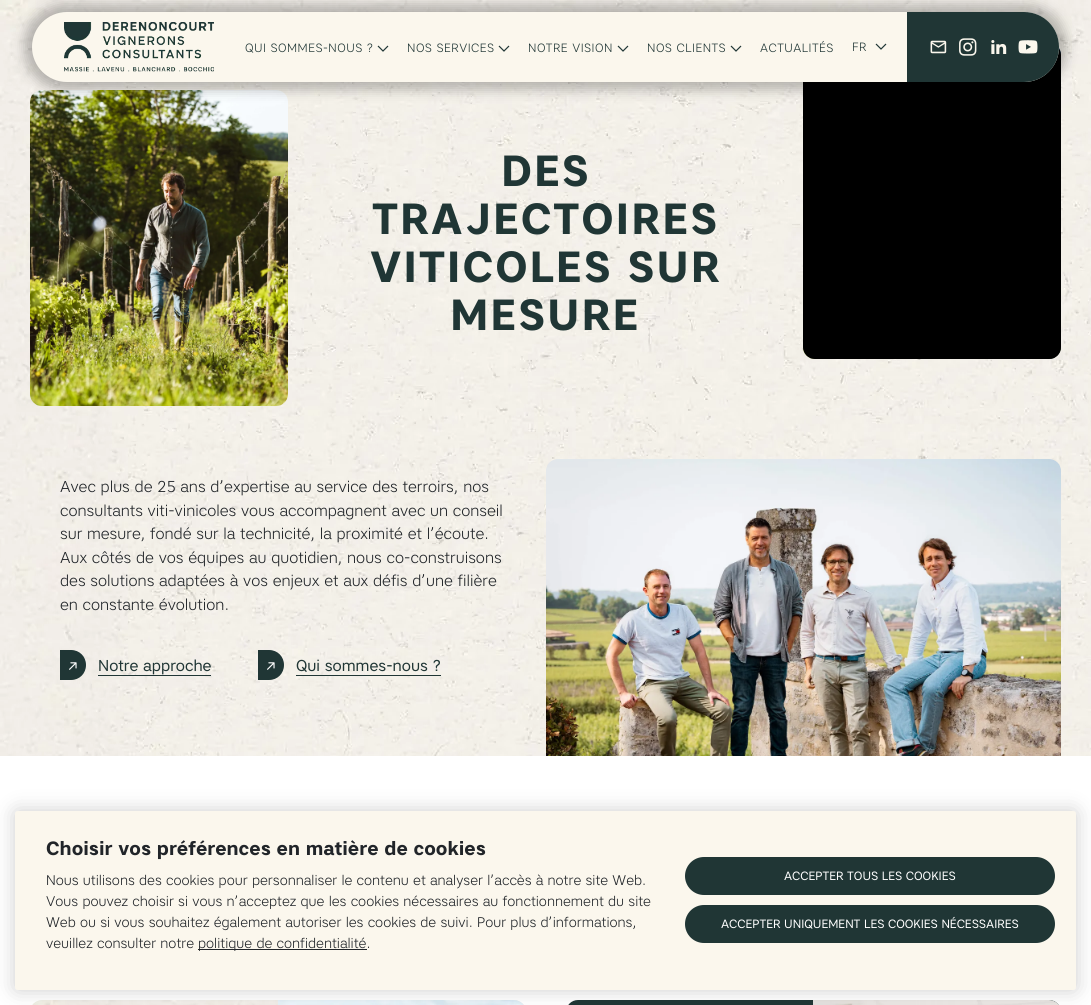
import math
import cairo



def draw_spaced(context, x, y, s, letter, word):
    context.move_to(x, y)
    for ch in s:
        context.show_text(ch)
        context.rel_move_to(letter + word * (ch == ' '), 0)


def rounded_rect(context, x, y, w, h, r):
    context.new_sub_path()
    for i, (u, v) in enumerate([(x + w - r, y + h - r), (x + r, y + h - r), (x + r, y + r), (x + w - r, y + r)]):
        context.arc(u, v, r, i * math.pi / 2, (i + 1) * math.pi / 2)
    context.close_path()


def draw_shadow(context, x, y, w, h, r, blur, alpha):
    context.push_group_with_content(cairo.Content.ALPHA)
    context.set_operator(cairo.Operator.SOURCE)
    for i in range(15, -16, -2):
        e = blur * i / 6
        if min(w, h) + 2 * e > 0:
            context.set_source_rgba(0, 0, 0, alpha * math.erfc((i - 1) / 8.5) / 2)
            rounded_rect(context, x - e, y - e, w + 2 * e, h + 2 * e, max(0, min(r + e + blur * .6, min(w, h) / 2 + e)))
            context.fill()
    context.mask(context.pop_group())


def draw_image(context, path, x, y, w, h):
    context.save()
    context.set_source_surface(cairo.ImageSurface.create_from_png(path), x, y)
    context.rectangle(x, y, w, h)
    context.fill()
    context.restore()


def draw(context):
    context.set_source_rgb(1, 1, 1)
    context.paint()
    draw_image(context, "images/6.png", 0, 0, 1091, 756)
    draw_image(context, "images/7.png", 30, 90, 258, 316)
    draw_image(context, "images/8.png", 803, 47, 258, 312)
    context.set_source_rgb(0, 0, 0)
    rounded_rect(context, 803, 43, 258, 316, 12)
    context.fill()
    context.set_source_rgb(0, 0, 0)
    draw_shadow(context, 24, 4, 1043, 86, 43, 6, 0.25)
    context.set_source_rgb(251 / 255, 247 / 255, 237 / 255)
    rounded_rect(context, 32, 12, 1027, 70, 35)
    context.fill()
    draw_image(context, "images/1.png", 64, 22, 150, 50)
    context.new_path()
    context.move_to(378, 46)
    context.line_to(383, 51)
    context.line_to(388, 46)
    context.set_source_rgb(32 / 255, 54 / 255, 53 / 255)
    context.set_line_width(1.2)
    context.stroke()
    context.new_path()
    context.move_to(499, 46)
    context.line_to(504, 51)
    context.line_to(509, 46)
    context.stroke()
    context.new_path()
    context.move_to(618, 46)
    context.line_to(623, 51)
    context.line_to(628, 46)
    context.stroke()
    context.new_path()
    context.move_to(731, 46)
    context.line_to(736, 51)
    context.line_to(741, 46)
    context.stroke()
    context.new_path()
    context.move_to(876, 44)
    context.line_to(881, 49)
    context.line_to(886, 44)
    context.stroke()
    context.new_path()
    context.move_to(907, 12)
    context.line_to(1024, 12)
    context.curve_to(1043.5, 12, 1059, 27.5, 1059, 47)
    context.curve_to(1059, 66.5, 1043.5, 82, 1024, 82)
    context.line_to(907, 82)
    context.close_path()
    context.fill()
    draw_image(context, "images/2.png", 930, 40, 17, 14)
    draw_image(context, "images/3.png", 959, 38, 18, 18)
    draw_image(context, "images/4.png", 991, 40, 16, 14)
    draw_image(context, "images/5.png", 1018, 40, 20, 14)
    context.new_path()
    context.move_to(60, 650)
    context.line_to(71, 650)
    context.curve_to(79.5, 650, 86, 656.5, 86, 665)
    context.curve_to(86, 673.5, 79.5, 680, 71, 680)
    context.line_to(60, 680)
    context.close_path()
    context.fill()
    context.rectangle(98, 675, 113, 1)
    context.fill()
    draw_image(context, "images/9.png", 69, 662, 8, 8)
    context.new_path()
    context.move_to(258, 650)
    context.line_to(269, 650)
    context.curve_to(277.5, 650, 284, 656.5, 284, 665)
    context.curve_to(284, 673.5, 277.5, 680, 269, 680)
    context.line_to(258, 680)
    context.close_path()
    context.fill()
    context.rectangle(296, 675, 145, 1)
    context.fill()
    draw_image(context, "images/9.png", 267, 662, 8, 8)
    draw_image(context, "images/10.png", 546, 459, 515, 297)
    draw_image(context, "images/11.png", 32, 1000, 492, 5)
    draw_image(context, "images/12.png", 278, 1000, 246, 5)
    rounded_rect(context, 566, 1000, 495, 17, 12)
    context.fill()
    draw_image(context, "images/13.png", 813, 1000, 246, 5)
    context.set_source_rgb(0, 0, 0)
    draw_shadow(context, 15, 811, 1061, 179, 2.5, 10, 0.2)
    context.set_source_rgb(251 / 255, 247 / 255, 237 / 255)
    rounded_rect(context, 15, 811, 1061, 179, 2.5)
    context.fill()
    context.set_source_rgb(33 / 255, 37 / 255, 41 / 255)
    context.rectangle(198, 949, 169, 1)
    context.fill()
    context.set_source_rgb(32 / 255, 54 / 255, 53 / 255)
    rounded_rect(context, 685, 857, 370, 38, 19)
    context.fill()
    rounded_rect(context, 685, 905, 370, 38, 19)
    context.fill()
    context.select_font_face("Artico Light")
    context.set_font_size(12)
    draw_spaced(context, 245, 52, "QUI SOMMES-NOUS ?", 0.5, 0)
    draw_spaced(context, 407, 52, "NOS SERVICES", 0.5, 0)
    draw_spaced(context, 528, 52, "NOTRE VISION", 0.5, 0)
    draw_spaced(context, 647, 52, "NOS CLIENTS", 0.5, 0)
    draw_spaced(context, 760, 52, "ACTUALITÉS", 0.5, 0)
    draw_spaced(context, 852, 51, "FR", 0.5, 0)
    context.select_font_face("Artico", cairo.FontSlant.NORMAL, cairo.FontWeight.BOLD)
    context.set_font_size(43.5)
    draw_spaced(context, 501, 186, "DES", 1.9, 0)
    draw_spaced(context, 372, 234, "TRAJECTOIRES", 1.9, 0)
    draw_spaced(context, 370, 282, "VITICOLES SUR", 1.9, 0)
    draw_spaced(context, 450, 330, "MESURE", 1.9, 0)
    context.select_font_face("Artico Light")
    context.set_font_size(15.75)
    context.set_source_rgb(33 / 255, 37 / 255, 41 / 255)
    context.move_to(60, 492)
    context.show_text("Avec plus de 25 ans d’expertise au service des terroirs, nos")
    context.move_to(60, 516)
    context.show_text("consultants viti-vinicoles vous accompagnent avec un conseil")
    context.move_to(60, 539)
    context.show_text("sur mesure, fondé sur la technicité, la proximité et l’écoute.")
    context.move_to(60, 563)
    context.show_text("Aux côtés de vos équipes au quotidien, nous co-construisons")
    context.move_to(60, 586)
    context.show_text("des solutions adaptées à vos enjeux et aux défis d’une filière")
    context.move_to(60, 610)
    context.show_text("en constante évolution.")
    context.select_font_face("Artico")
    context.set_source_rgb(32 / 255, 54 / 255, 53 / 255)
    context.move_to(98, 671)
    context.show_text("Notre approche")
    context.move_to(296, 671)
    context.show_text("Qui sommes-nous ?")
    context.select_font_face("Artico", cairo.FontSlant.NORMAL, cairo.FontWeight.BOLD)
    context.set_font_size(19.2)
    context.set_source_rgb(33 / 255, 37 / 255, 41 / 255)
    context.move_to(46, 855)
    context.show_text("Choisir vos préférences en matière de cookies")
    context.select_font_face("Artico Light")
    context.set_font_size(14)
    context.move_to(46, 885)
    context.show_text("Nous utilisons des cookies pour personnaliser le contenu et analyser l’accès à notre site Web.")
    context.move_to(46, 906)
    context.show_text("Vous pouvez choisir si vous n’acceptez que les cookies nécessaires au fonctionnement du site")
    context.move_to(46, 927)
    context.show_text("Web ou si vous souhaitez également autoriser les cookies de suivi. Pour plus d’informations,")
    context.move_to(46, 948)
    context.show_text("veuillez consulter notre")
    context.move_to(198, 948)
    context.show_text("politique de confidentialité.")
    context.select_font_face("Artico")
    context.set_font_size(12)
    context.set_source_rgb(1, 1, 1)
    context.move_to(784, 880)
    context.show_text("ACCEPTER TOUS LES COOKIES")
    context.move_to(721, 928)
    context.show_text("ACCEPTER UNIQUEMENT LES COOKIES NÉCESSAIRES")


surface = cairo.ImageSurface(cairo.Format.RGB24, 1091, 1005)
context = cairo.Context(surface)
options = cairo.FontOptions()
options.set_hint_metrics(cairo.HintMetrics.OFF)
options.set_hint_style(cairo.HintStyle.NONE)
context.set_font_options(options)
context.set_miter_limit(4)
draw(context)
surface.write_to_png("out.png")
